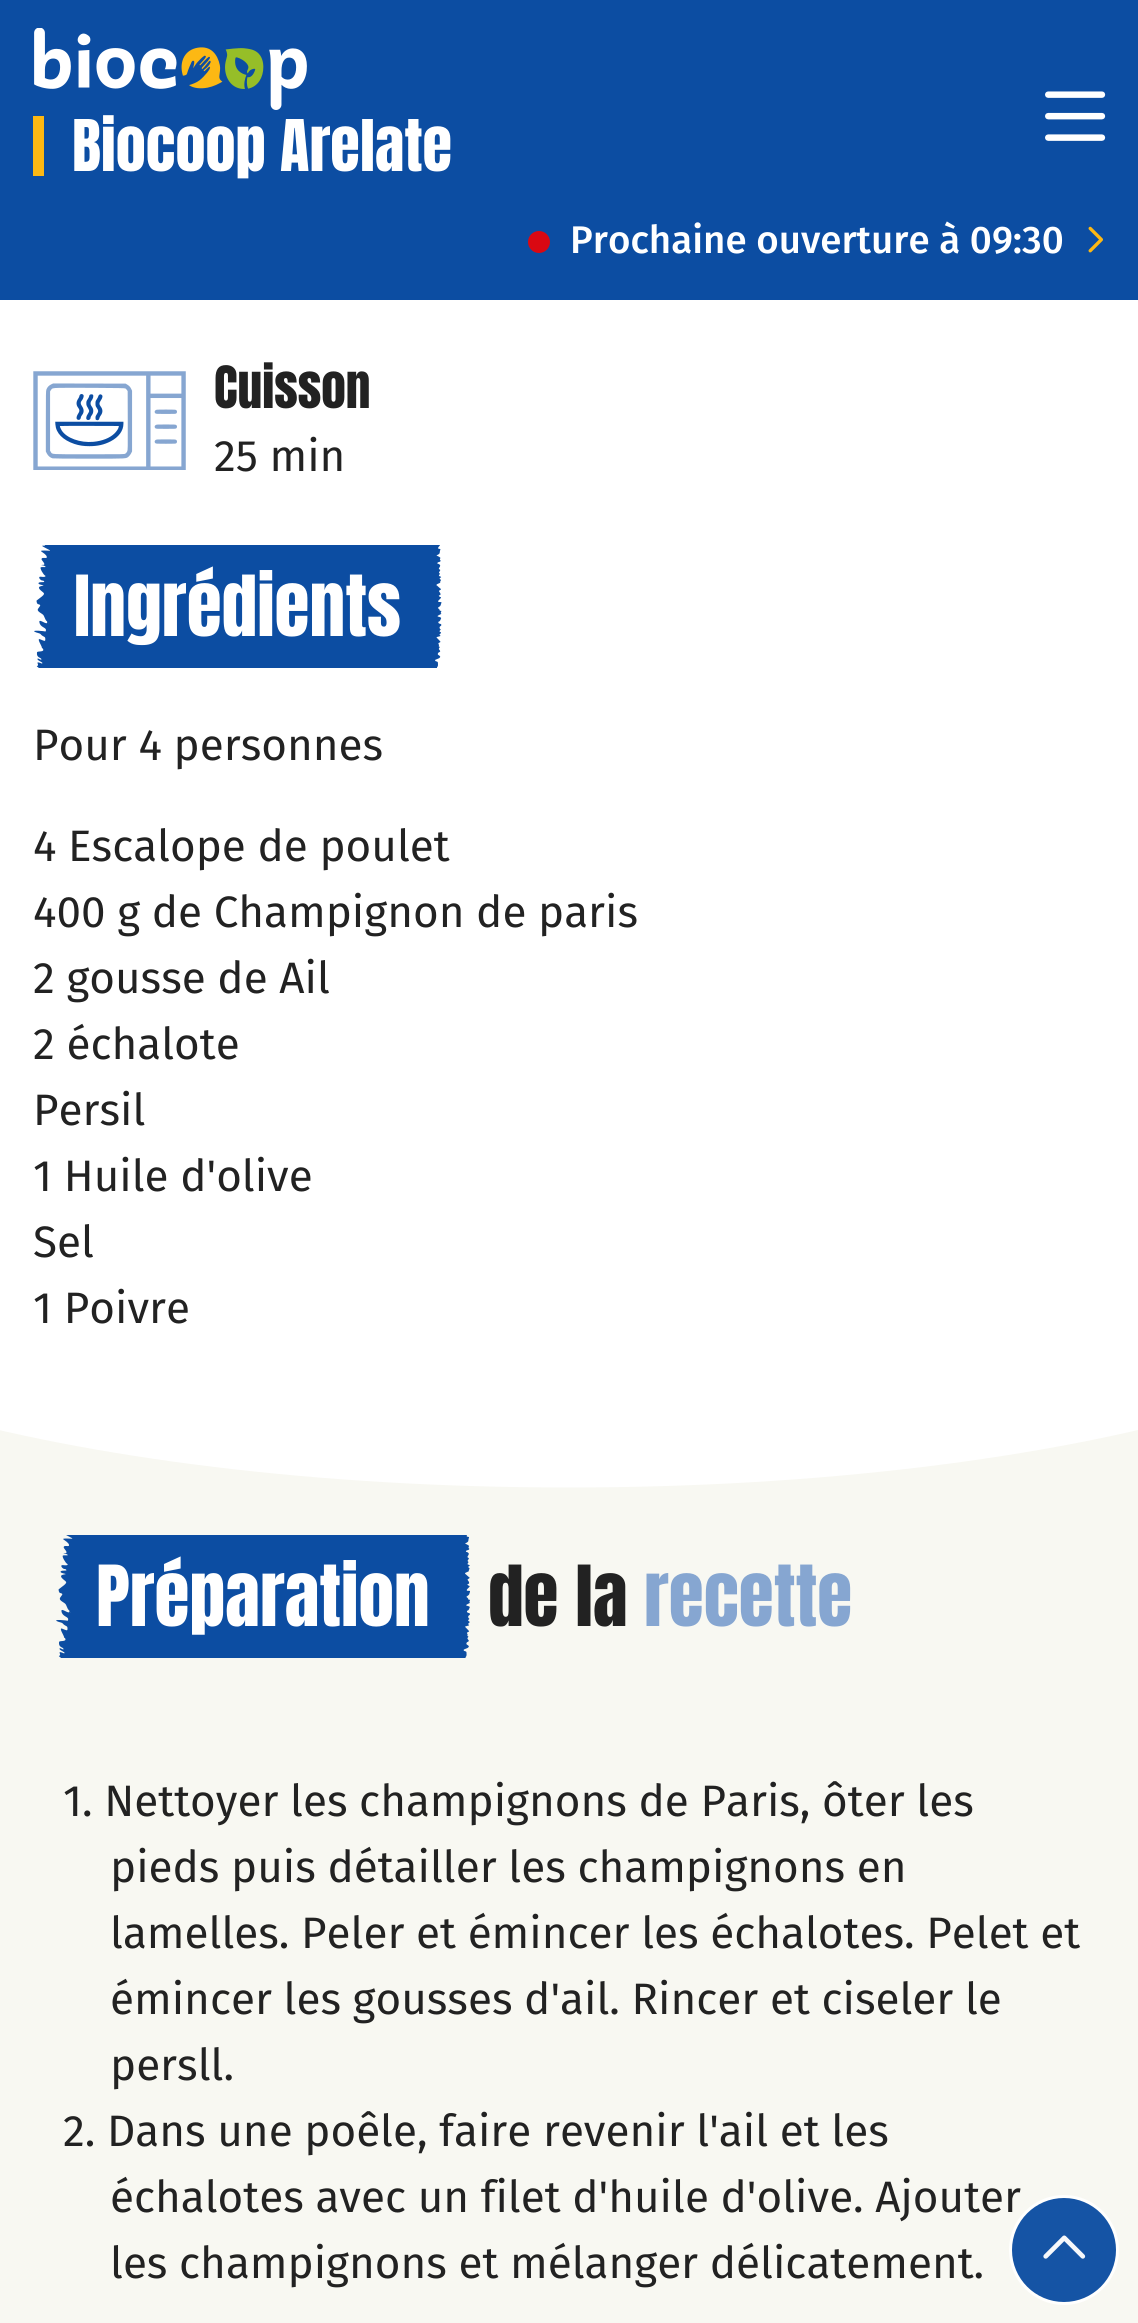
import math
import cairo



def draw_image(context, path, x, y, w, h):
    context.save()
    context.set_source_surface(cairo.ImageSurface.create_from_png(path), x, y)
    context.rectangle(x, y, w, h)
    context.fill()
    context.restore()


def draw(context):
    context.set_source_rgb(1, 1, 1)
    context.paint()
    context.set_source_rgb(12 / 255, 77 / 255, 162 / 255)
    context.rectangle(0, 0, 1138, 300)
    context.fill()
    draw_image(context, "images/1.png", 34, 28, 273, 82)
    context.set_source_rgb(253 / 255, 184 / 255, 19 / 255)
    context.rectangle(33, 116, 11, 60)
    context.fill()
    draw_image(context, "images/2.png", 1045, 91, 61, 50)
    context.set_source_rgb(218 / 255, 8 / 255, 18 / 255)
    context.arc(539, 242, 11, 0, 2 * math.pi)
    context.fill()
    draw_image(context, "images/3.png", 1088, 226, 15, 27)
    draw_image(context, "images/5.png", 33, 371, 153, 99)
    draw_image(context, "images/6.png", 34, 545, 408, 123)
    context.set_source_rgb(248 / 255, 248 / 255, 242 / 255)
    context.rectangle(0, 1430, 1138, 893)
    context.fill()
    context.save()
    context.rectangle(0, 1342, 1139, 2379)
    context.clip()
    context.set_source_rgb(1, 1, 1)
    context.new_path()
    context.move_to(568.5, 965.5)
    context.curve_to(1071, 965.5, 1478.5, 1082.5, 1478.5, 1226.5)
    context.curve_to(1478.5, 1370.5, 1071, 1487.5, 568.5, 1487.5)
    context.curve_to(66, 1487.5, -341.5, 1370.5, -341.5, 1226.5)
    context.curve_to(-341.5, 1082.5, 66, 965.5, 568.5, 965.5)
    context.close_path()
    context.fill()
    context.restore()
    draw_image(context, "images/7.png", 56, 1535, 414, 123)
    context.select_font_face("Anton")
    context.set_font_size(60.5)
    context.set_source_rgb(1, 1, 1)
    context.move_to(72, 171)
    context.show_text("Biocoop Arelate")
    context.select_font_face("Fira Sans Medium")
    context.set_font_size(38.5)
    context.move_to(570, 253)
    context.show_text("Prochaine ouverture à 09:30")
    context.select_font_face("Anton")
    context.set_font_size(49.5)
    context.set_source_rgb(34 / 255, 34 / 255, 34 / 255)
    context.move_to(214, 408)
    context.show_text("Cuisson")
    context.select_font_face("Fira Sans")
    context.set_font_size(44)
    context.move_to(214, 471)
    context.show_text("25 min")
    context.select_font_face("Anton")
    context.set_font_size(71.5)
    context.set_source_rgb(1, 1, 1)
    context.move_to(74, 636)
    context.show_text("Ingrédients")
    context.select_font_face("Fira Sans")
    context.set_font_size(44)
    context.set_source_rgb(34 / 255, 34 / 255, 34 / 255)
    context.move_to(33, 760)
    context.show_text("Pour 4 personnes")
    context.move_to(33, 861)
    context.show_text("4 Escalope de poulet")
    context.move_to(33, 927)
    context.show_text("400 g de Champignon de paris")
    context.move_to(33, 993)
    context.show_text("2 gousse de Ail")
    context.move_to(33, 1059)
    context.show_text("2 échalote")
    context.move_to(33, 1125)
    context.show_text("Persil")
    context.move_to(33, 1191)
    context.show_text("1 Huile d'olive")
    context.move_to(33, 1257)
    context.show_text("Sel")
    context.move_to(33, 1323)
    context.show_text("1 Poivre")
    context.select_font_face("Anton")
    context.set_font_size(71.5)
    context.set_source_rgb(1, 1, 1)
    context.move_to(96, 1626)
    context.show_text("Préparation")
    context.set_source_rgb(34 / 255, 34 / 255, 34 / 255)
    context.move_to(488, 1626)
    context.show_text("de la")
    context.set_source_rgb(134 / 255, 166 / 255, 209 / 255)
    context.move_to(644, 1626)
    context.show_text("recette")
    context.select_font_face("Fira Sans")
    context.set_font_size(44)
    context.set_source_rgb(34 / 255, 34 / 255, 34 / 255)
    context.move_to(63, 1816)
    context.show_text("1. Nettoyer les champignons de Paris, ôter les")
    context.move_to(110, 1882)
    context.show_text("pieds puis détailler les champignons en")
    context.move_to(110, 1948)
    context.show_text("lamelles. Peler et émincer les échalotes. Pelet et")
    context.move_to(110, 2014)
    context.show_text("émincer les gousses d'ail. Rincer et ciseler le")
    context.move_to(110, 2080)
    context.show_text("persll.")
    context.move_to(63, 2146)
    context.show_text("2. Dans une poêle, faire revenir l'ail et les")
    context.move_to(110, 2212)
    context.show_text("échalotes avec un filet d'huile d'olive. Ajouter")
    context.set_source_rgb(21 / 255, 84 / 255, 165 / 255)
    context.new_path()
    context.arc(1064, 2250, 53.5, 0, 2 * math.pi)
    context.fill_preserve()
    context.set_source_rgb(1, 1, 254 / 255)
    context.set_line_width(3)
    context.stroke()
    draw_image(context, "images/4.png", 1043, 2235, 43, 24)
    context.set_source_rgb(34 / 255, 34 / 255, 34 / 255)
    context.move_to(110, 2278)
    context.show_text("les champignons et mélanger délicatement.")


surface = cairo.ImageSurface(cairo.Format.RGB24, 1138, 2323)
context = cairo.Context(surface)
options = cairo.FontOptions()
options.set_hint_metrics(cairo.HintMetrics.OFF)
options.set_hint_style(cairo.HintStyle.NONE)
context.set_font_options(options)
context.set_miter_limit(4)
draw(context)
surface.write_to_png("out.png")
